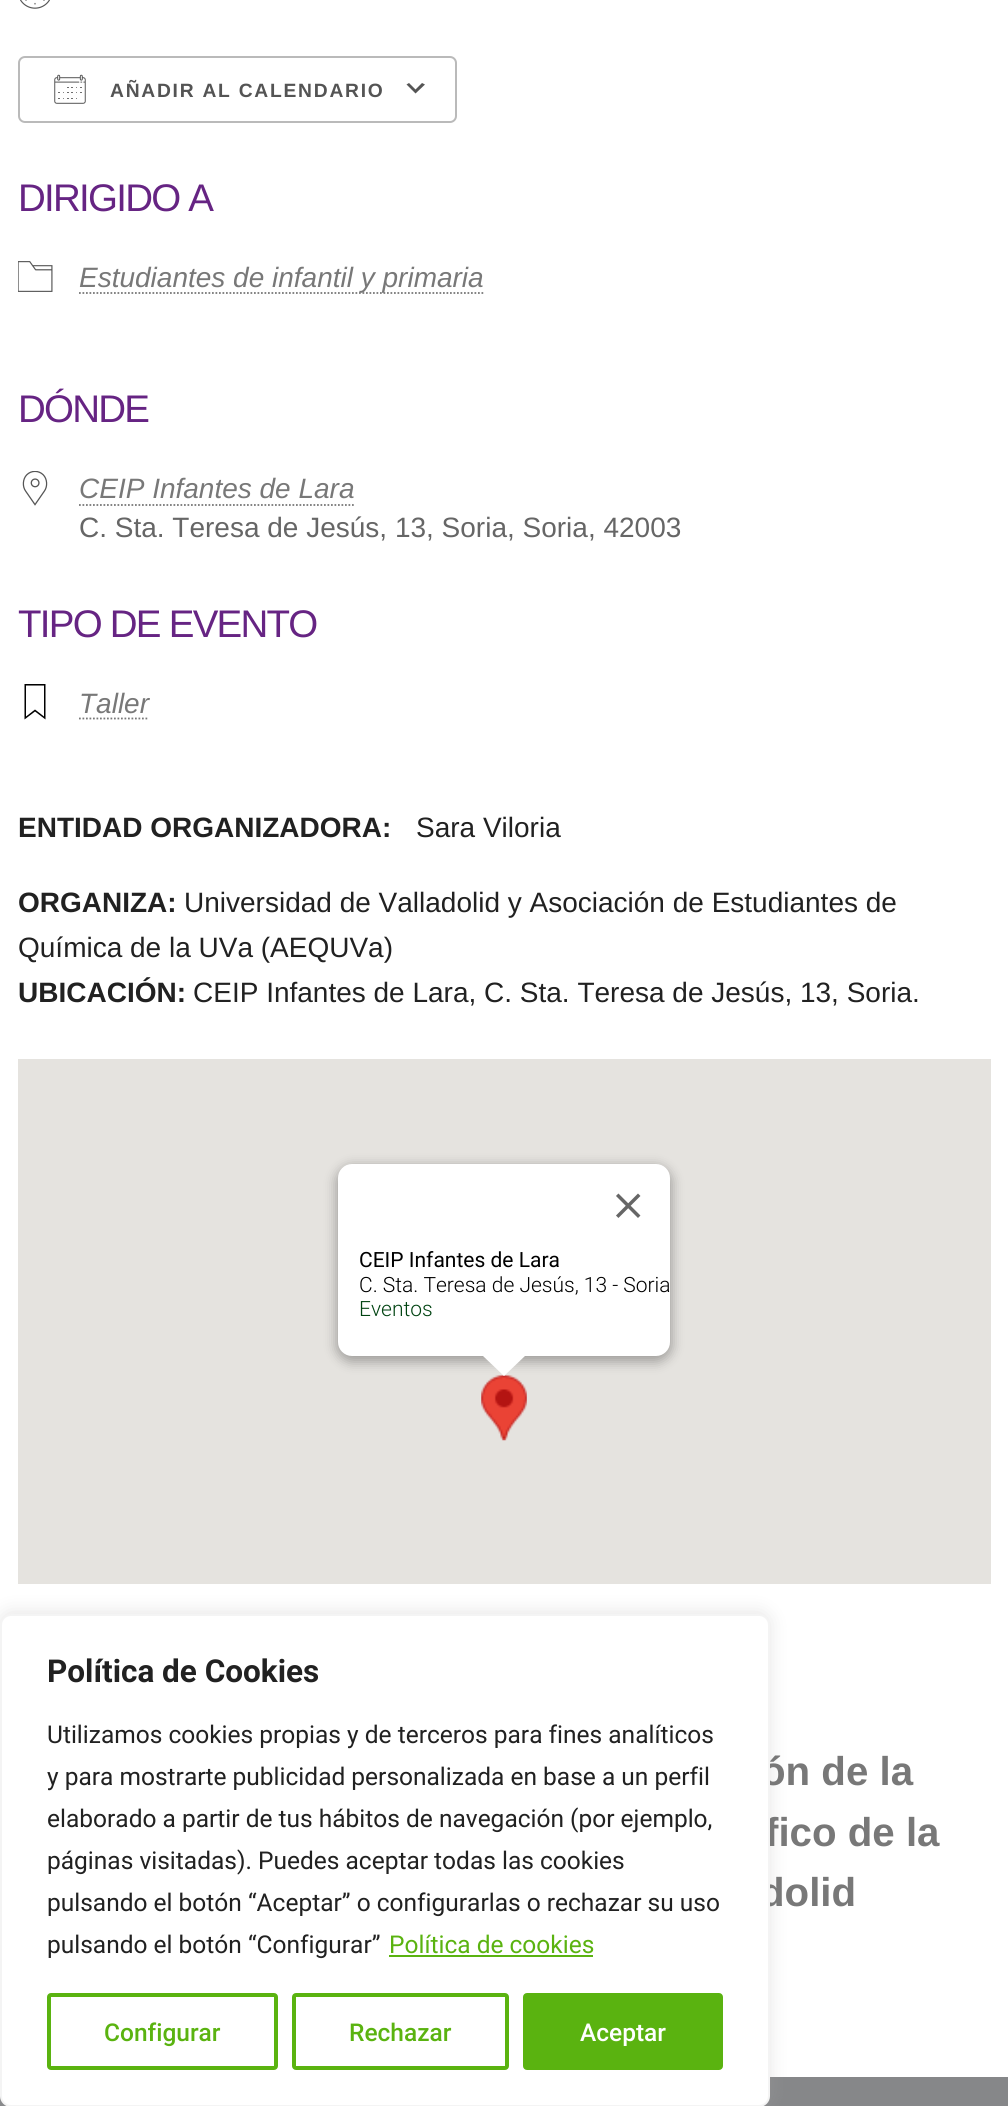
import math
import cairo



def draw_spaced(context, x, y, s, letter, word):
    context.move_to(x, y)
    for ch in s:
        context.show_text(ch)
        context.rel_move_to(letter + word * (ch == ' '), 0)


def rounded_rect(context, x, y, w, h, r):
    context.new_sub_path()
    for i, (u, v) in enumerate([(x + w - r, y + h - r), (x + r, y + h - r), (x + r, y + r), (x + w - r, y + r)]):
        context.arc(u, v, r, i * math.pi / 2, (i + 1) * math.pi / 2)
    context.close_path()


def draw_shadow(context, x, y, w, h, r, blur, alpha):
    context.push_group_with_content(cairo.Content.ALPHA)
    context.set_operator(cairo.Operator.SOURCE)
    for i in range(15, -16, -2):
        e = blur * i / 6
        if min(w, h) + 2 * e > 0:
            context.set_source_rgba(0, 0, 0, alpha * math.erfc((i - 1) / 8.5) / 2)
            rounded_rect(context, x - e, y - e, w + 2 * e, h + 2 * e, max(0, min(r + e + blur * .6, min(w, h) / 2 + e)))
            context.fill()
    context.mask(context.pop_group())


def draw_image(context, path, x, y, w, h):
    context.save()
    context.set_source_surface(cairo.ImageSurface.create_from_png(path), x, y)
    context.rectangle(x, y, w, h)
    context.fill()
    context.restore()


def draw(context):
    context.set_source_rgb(1, 1, 1)
    context.paint()
    draw_image(context, "images/1.png", 20, 0, 30, 9)
    context.set_source_rgb(85 / 255, 85 / 255, 85 / 255)
    context.new_path()
    context.move_to(409, 83)
    context.line_to(415.5, 89.5)
    context.line_to(422, 83)
    context.line_to(425, 84.5)
    context.line_to(415.5, 93.5)
    context.line_to(406.5, 84.5)
    context.close_path()
    context.fill()
    rounded_rect(context, 19, 57, 437, 65, 6)
    context.set_source_rgb(186 / 255, 186 / 255, 186 / 255)
    context.stroke()
    draw_image(context, "images/2.png", 54, 74, 32, 30)
    draw_image(context, "images/3.png", 18, 261, 35, 31)
    context.new_path()
    context.move_to(79, 293)
    context.line_to(483.5, 293)
    context.set_source_rgb(120 / 255, 120 / 255, 120 / 255)
    context.set_line_width(1.8)
    context.set_dash([1.75, 1.75])
    context.stroke()
    draw_image(context, "images/4.png", 22, 471, 26, 35)
    context.new_path()
    context.move_to(79, 505)
    context.line_to(354.5, 505)
    context.stroke()
    context.set_source_rgb(0, 0, 0)
    context.new_path()
    context.move_to(24.5, 684)
    context.line_to(24.5, 719.5)
    context.line_to(35, 711.5)
    context.line_to(45.5, 719.5)
    context.line_to(45.5, 684)
    context.close_path()
    context.move_to(44, 716.5)
    context.line_to(35, 709.5)
    context.line_to(26, 716.5)
    context.line_to(26, 685.5)
    context.line_to(44, 685.5)
    context.close_path()
    context.fill()
    context.new_path()
    context.move_to(79, 718.5)
    context.line_to(149, 718.5)
    context.set_source_rgb(120 / 255, 120 / 255, 120 / 255)
    context.stroke()
    context.set_source_rgb(229 / 255, 227 / 255, 223 / 255)
    context.rectangle(18, 1059, 973, 525)
    context.fill()
    draw_image(context, "images/6.png", 481, 1375, 46, 66)
    context.set_source_rgb(0, 0, 0)
    draw_shadow(context, 336, 1166, 336, 196, 16, 6, 0.3)
    context.set_source_rgb(1, 1, 1)
    rounded_rect(context, 338, 1164, 332, 192, 14)
    context.fill()
    draw_image(context, "images/5.png", 616, 1193, 25, 25)
    context.new_path()
    context.move_to(483, 1355)
    context.line_to(483, 1356)
    context.line_to(504, 1376)
    context.line_to(526, 1355)
    context.close_path()
    context.fill()
    context.set_source_rgb(134 / 255, 135 / 255, 137 / 255)
    context.rectangle(0, 2077, 1008, 29)
    context.fill()
    context.set_source_rgb(172 / 255, 171 / 255, 171 / 255)
    draw_shadow(context, 0, 1612, 770, 493, 11, 9, 0.3)
    context.select_font_face("Liberation Sans", cairo.FontSlant.NORMAL, cairo.FontWeight.BOLD)
    context.set_font_size(19.25)
    context.set_source_rgb(84 / 255, 84 / 255, 84 / 255)
    draw_spaced(context, 110, 97, "AÑADIR AL CALENDARIO", 1.75, 0)
    context.select_font_face("Liberation Sans")
    context.set_font_size(38.5)
    context.set_source_rgb(102 / 255, 36 / 255, 131 / 255)
    draw_spaced(context, 18, 211, "DIRIGIDO A", -1.75, 0)
    context.select_font_face("Liberation Sans", cairo.FontSlant.ITALIC)
    context.set_font_size(28)
    context.set_source_rgb(120 / 255, 120 / 255, 120 / 255)
    context.move_to(79, 287)
    context.show_text("Estudiantes de infantil y primaria")
    context.select_font_face("Liberation Sans")
    context.set_font_size(38.5)
    context.set_source_rgb(102 / 255, 36 / 255, 131 / 255)
    draw_spaced(context, 18, 422, "DÓNDE", -1.75, 0)
    context.select_font_face("Liberation Sans", cairo.FontSlant.ITALIC)
    context.set_font_size(28)
    context.set_source_rgb(120 / 255, 120 / 255, 120 / 255)
    context.move_to(79, 498)
    context.show_text("CEIP Infantes de Lara")
    context.select_font_face("Liberation Sans")
    context.set_source_rgb(102 / 255, 102 / 255, 102 / 255)
    context.move_to(79, 537)
    context.show_text("C. Sta. Teresa de Jesús, 13, Soria, Soria, 42003")
    context.set_font_size(38.5)
    context.set_source_rgb(102 / 255, 36 / 255, 131 / 255)
    draw_spaced(context, 18, 637, "TIPO DE EVENTO", -1.75, 0)
    context.select_font_face("Liberation Sans", cairo.FontSlant.ITALIC)
    context.set_font_size(28)
    context.set_source_rgb(120 / 255, 120 / 255, 120 / 255)
    context.move_to(79, 713)
    context.show_text("Taller")
    context.select_font_face("Liberation Sans", cairo.FontSlant.NORMAL, cairo.FontWeight.BOLD)
    context.set_source_rgb(33 / 255, 33 / 255, 33 / 255)
    context.move_to(18, 837)
    context.show_text("ENTIDAD ORGANIZADORA:")
    context.select_font_face("Liberation Sans")
    context.move_to(416, 837)
    context.show_text("Sara Viloria")
    context.select_font_face("Liberation Sans", cairo.FontSlant.NORMAL, cairo.FontWeight.BOLD)
    context.move_to(18, 912)
    context.show_text("ORGANIZA:")
    context.select_font_face("Liberation Sans")
    context.move_to(184, 912)
    context.show_text("Universidad de Valladolid y Asociación de Estudiantes de")
    context.move_to(18, 957)
    context.show_text("Química de la UVa (AEQUVa)")
    context.select_font_face("Liberation Sans", cairo.FontSlant.NORMAL, cairo.FontWeight.BOLD)
    context.move_to(18, 1002)
    context.show_text("UBICACIÓN:")
    context.select_font_face("Liberation Sans")
    context.move_to(193, 1002)
    context.show_text("CEIP Infantes de Lara, C. Sta. Teresa de Jesús, 13, Soria.")
    context.select_font_face("Roboto")
    context.set_font_size(21)
    context.set_source_rgb(0, 0, 0)
    context.move_to(359, 1267)
    context.show_text("CEIP Infantes de Lara")
    context.select_font_face("Roboto Light")
    context.move_to(359, 1292)
    context.show_text("C. Sta. Teresa de Jesús, 13 - Soria")
    context.set_source_rgb(0, 67 / 255, 17 / 255)
    context.move_to(359, 1316)
    context.show_text("Eventos")
    context.select_font_face("Liberation Sans", cairo.FontSlant.NORMAL, cairo.FontWeight.BOLD)
    context.set_font_size(40.25)
    context.set_source_rgb(120 / 255, 120 / 255, 120 / 255)
    context.move_to(761, 1785)
    context.show_text("ón de la")
    context.move_to(765, 1846)
    context.show_text("fico de la")
    context.move_to(760, 1906)
    context.show_text("dolid")
    context.set_source_rgb(1, 1, 1)
    rounded_rect(context, 1, 1615, 768, 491, 10)
    context.fill_preserve()
    context.set_source_rgb(244 / 255, 244 / 255, 244 / 255)
    context.set_line_width(2)
    context.set_dash([])
    context.stroke()
    context.set_source_rgb(90 / 255, 179 / 255, 16 / 255)
    rounded_rect(context, 525, 1995, 196, 73, 2)
    context.fill_preserve()
    context.set_line_width(4)
    context.stroke()
    context.select_font_face("Roboto Medium")
    context.set_font_size(24.5)
    context.set_source_rgb(1, 1, 1)
    context.move_to(580, 2041)
    context.show_text("Aceptar")
    rounded_rect(context, 294, 1995, 213, 73, 2)
    context.set_source_rgb(90 / 255, 179 / 255, 16 / 255)
    context.stroke()
    context.move_to(349, 2041)
    context.show_text("Rechazar")
    rounded_rect(context, 49, 1995, 227, 73, 2)
    context.stroke()
    context.move_to(104, 2041)
    context.show_text("Configurar")
    context.select_font_face("Roboto")
    context.move_to(389, 1953)
    context.show_text("Política de cookies")
    context.rectangle(389, 1955, 204, 2)
    context.fill()
    context.set_source_rgb(33 / 255, 33 / 255, 33 / 255)
    context.move_to(47, 1953)
    context.show_text("pulsando el botón “Configurar”")
    context.move_to(47, 1911)
    context.show_text("pulsando el botón “Aceptar” o configurarlas o rechazar su uso")
    context.move_to(47, 1869)
    context.show_text("páginas visitadas). Puedes aceptar todas las cookies")
    context.move_to(47, 1827)
    context.show_text("elaborado a partir de tus hábitos de navegación (por ejemplo,")
    context.move_to(47, 1785)
    context.show_text("y para mostrarte publicidad personalizada en base a un perfil")
    context.move_to(47, 1743)
    context.show_text("Utilizamos cookies propias y de terceros para fines analíticos")
    context.select_font_face("Roboto", cairo.FontSlant.NORMAL, cairo.FontWeight.BOLD)
    context.set_font_size(31.5)
    context.move_to(47, 1682)
    context.show_text("Política de Cookies")


surface = cairo.ImageSurface(cairo.Format.RGB24, 1008, 2106)
context = cairo.Context(surface)
options = cairo.FontOptions()
options.set_hint_metrics(cairo.HintMetrics.OFF)
options.set_hint_style(cairo.HintStyle.NONE)
context.set_font_options(options)
context.set_miter_limit(4)
draw(context)
surface.write_to_png("out.png")
